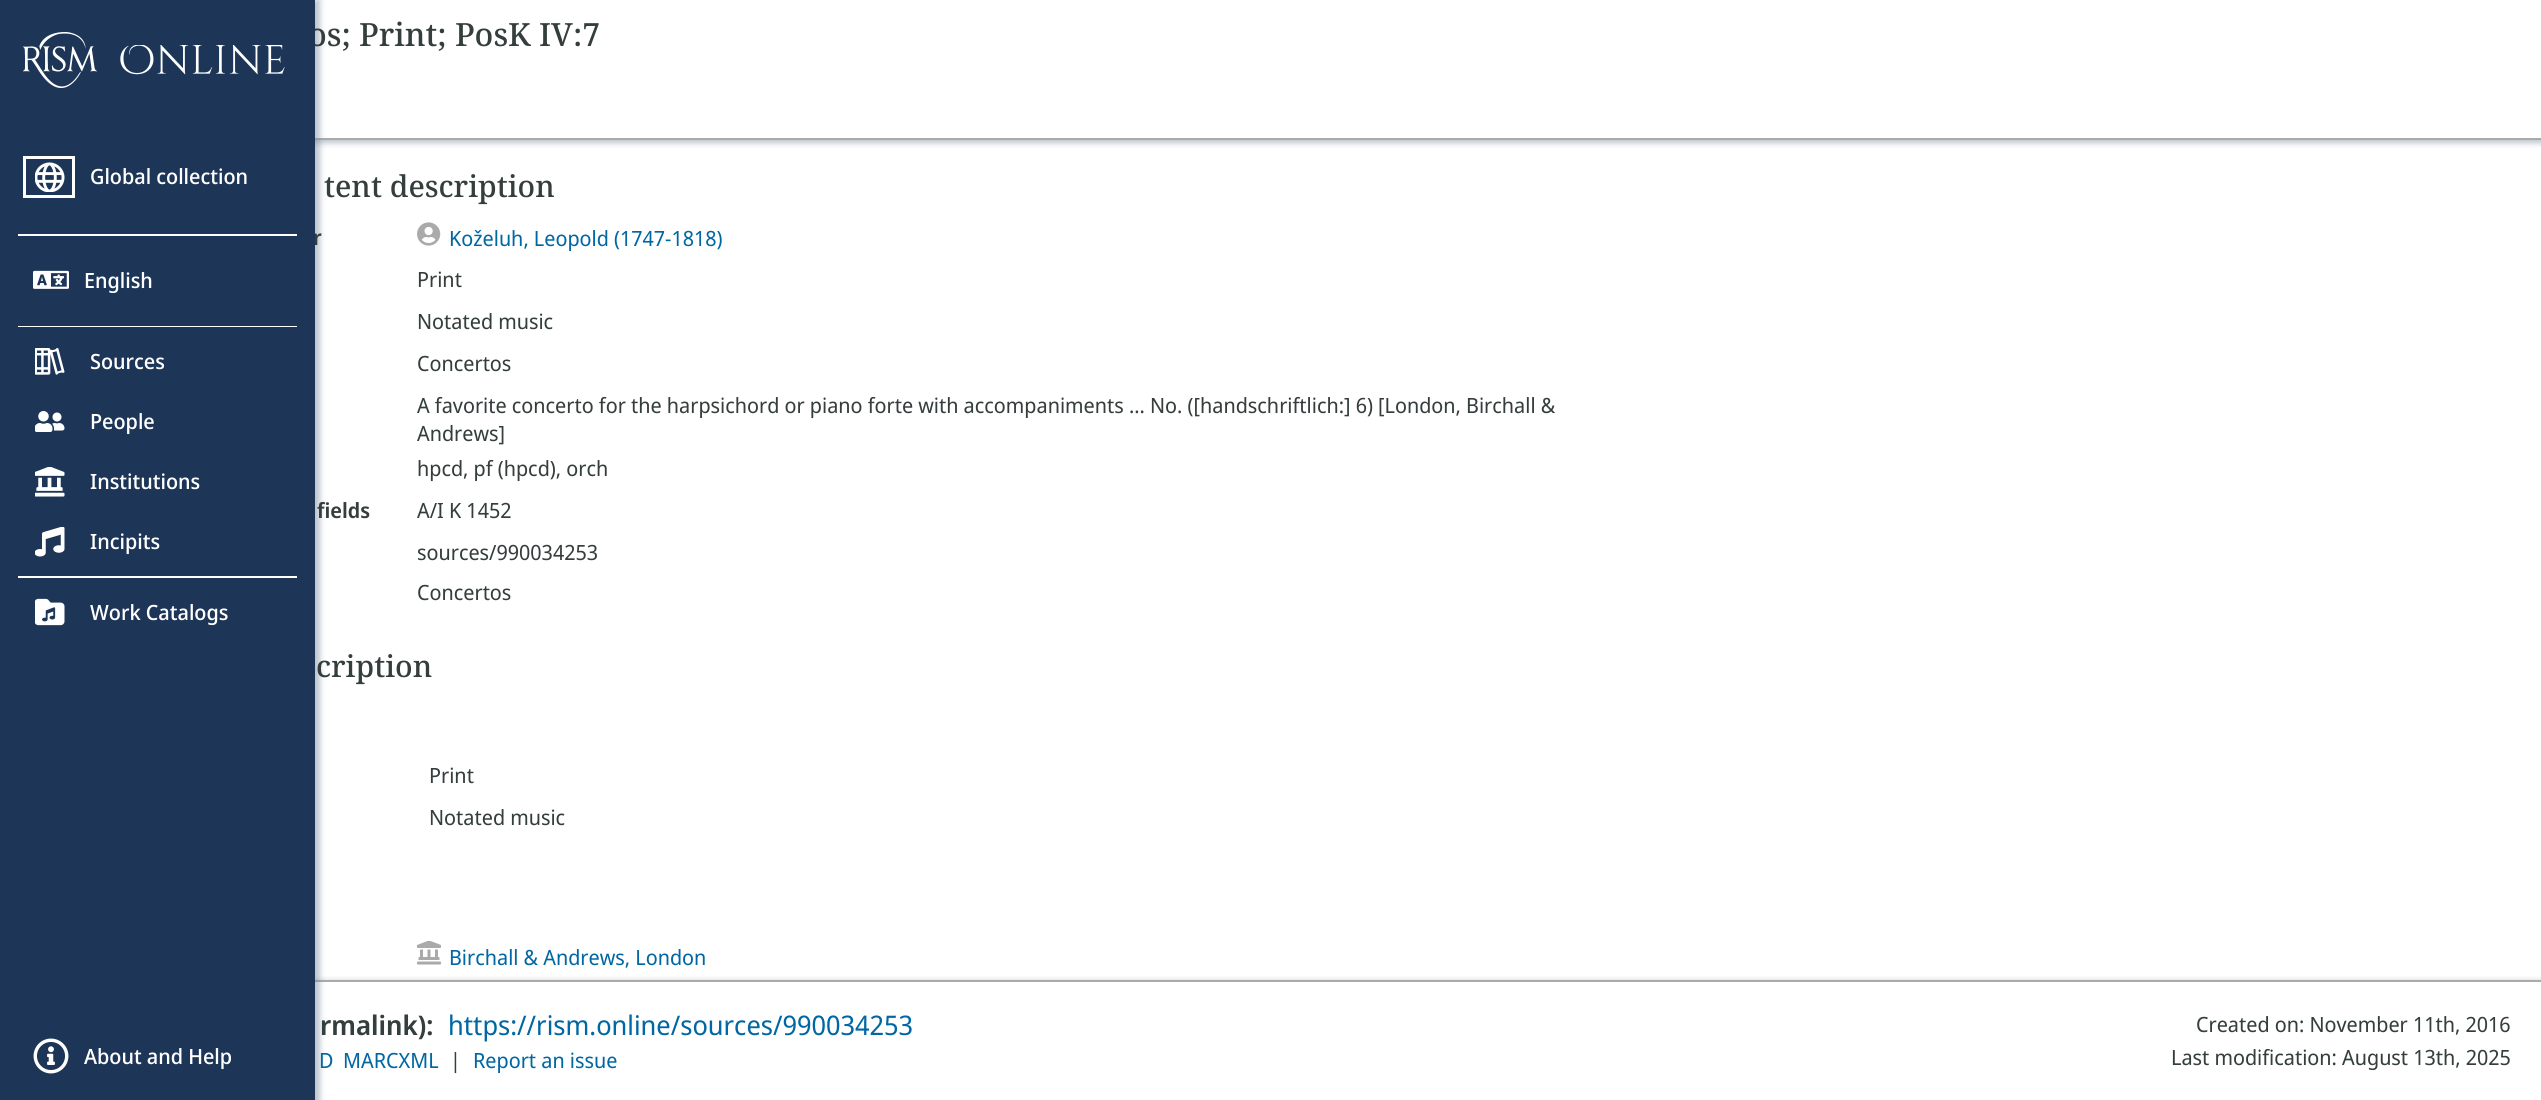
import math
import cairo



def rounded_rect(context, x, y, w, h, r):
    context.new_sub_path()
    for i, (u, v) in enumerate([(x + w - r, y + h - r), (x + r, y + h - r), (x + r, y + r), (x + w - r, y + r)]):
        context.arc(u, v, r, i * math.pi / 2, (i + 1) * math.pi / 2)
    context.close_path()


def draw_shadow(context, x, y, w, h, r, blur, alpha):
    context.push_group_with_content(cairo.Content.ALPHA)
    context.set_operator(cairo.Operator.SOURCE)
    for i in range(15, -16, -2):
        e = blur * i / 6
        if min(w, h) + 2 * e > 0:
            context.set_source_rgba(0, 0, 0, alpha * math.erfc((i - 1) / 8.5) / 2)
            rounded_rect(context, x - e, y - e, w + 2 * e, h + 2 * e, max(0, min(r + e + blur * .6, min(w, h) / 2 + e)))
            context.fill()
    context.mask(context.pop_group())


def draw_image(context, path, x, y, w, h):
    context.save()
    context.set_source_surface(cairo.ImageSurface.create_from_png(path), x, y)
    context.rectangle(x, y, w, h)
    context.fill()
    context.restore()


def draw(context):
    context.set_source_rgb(1, 1, 1)
    context.paint()
    context.save()
    context.rectangle(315, 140, 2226, 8)
    context.clip()
    context.set_source_rgb(119 / 255, 136 / 255, 153 / 255)
    draw_shadow(context, 105, 2, 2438, 141, 0, 3, 0.5)
    context.restore()
    context.set_source_rgb(170 / 255, 170 / 255, 170 / 255)
    context.rectangle(315, 138, 2226, 2)
    context.fill()
    context.save()
    context.rectangle(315, 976, 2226, 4)
    context.clip()
    context.set_source_rgb(119 / 255, 136 / 255, 153 / 255)
    draw_shadow(context, 105, 981, 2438, 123, 0, 3, 0.5)
    context.restore()
    context.rectangle(315, 980, 2226, 2)
    context.fill()
    context.set_source_rgb(119 / 255, 136 / 255, 153 / 255)
    draw_shadow(context, 2, 0, 318, 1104, 0, 3, 0.5)
    context.set_source_rgb(29 / 255, 53 / 255, 87 / 255)
    context.rectangle(0, 327, 315, 251)
    context.fill()
    draw_image(context, "images/5.png", 35, 348, 30, 27)
    draw_image(context, "images/6.png", 35, 411, 30, 21)
    draw_image(context, "images/7.png", 35, 467, 30, 30)
    draw_image(context, "images/8.png", 35, 527, 30, 30)
    context.set_source_rgb(1, 1, 1)
    context.rectangle(18, 576, 279, 2)
    context.fill()
    context.set_source_rgb(29 / 255, 53 / 255, 87 / 255)
    context.rectangle(0, 578, 315, 69)
    context.fill()
    draw_image(context, "images/9.png", 35, 598, 30, 28)
    context.rectangle(0, 647, 315, 453)
    context.fill()
    draw_image(context, "images/10.png", 33, 1038, 36, 36)
    draw_image(context, "images/11.png", 417, 222, 24, 24)
    draw_image(context, "images/12.png", 417, 941, 24, 24)
    context.select_font_face("Noto Sans Display Medium")
    context.set_font_size(21)
    context.set_source_rgb(1, 1, 1)
    context.move_to(90, 369)
    context.show_text("Sources")
    context.move_to(90, 429)
    context.show_text("People")
    context.move_to(90, 489)
    context.show_text("Institutions")
    context.move_to(90, 549)
    context.show_text("Incipits")
    context.move_to(90, 620)
    context.show_text("Work Catalogs")
    context.move_to(84, 1064)
    context.show_text("About and Help")
    context.select_font_face("Noto Serif Medium")
    context.set_font_size(32)
    context.set_source_rgb(52 / 255, 62 / 255, 61 / 255)
    context.move_to(308, 46)
    context.show_text("os; Print; PosK IV:7")
    context.set_source_rgb(29 / 255, 53 / 255, 87 / 255)
    context.rectangle(0, 0, 315, 120)
    context.fill()
    draw_image(context, "images/2.png", 120, 45, 165, 30)
    draw_image(context, "images/1.png", 23, 32, 75, 56)
    context.set_font_size(30)
    context.set_source_rgb(52 / 255, 62 / 255, 61 / 255)
    context.move_to(324, 197)
    context.show_text("tent description")
    context.select_font_face("Noto Sans Display SemiBold")
    context.set_font_size(21)
    context.move_to(313, 245)
    context.show_text("r")
    context.set_source_rgb(29 / 255, 53 / 255, 87 / 255)
    context.rectangle(0, 120, 315, 207)
    context.fill()
    context.set_source_rgb(1, 1, 1)
    context.rectangle(18, 326, 279, 1)
    context.fill()
    context.select_font_face("Noto Sans Display Medium")
    context.move_to(84, 288)
    context.show_text("English")
    draw_image(context, "images/4.png", 33, 270, 36, 19)
    context.rectangle(18, 234, 279, 2)
    context.fill()
    context.move_to(90, 184)
    context.show_text("Global collection")
    context.rectangle(24.5, 157.5, 49, 39)
    context.set_line_width(3)
    context.stroke()
    draw_image(context, "images/3.png", 35, 162, 30, 30)
    context.select_font_face("Noto Sans Display")
    context.set_source_rgb(0, 103 / 255, 163 / 255)
    context.move_to(449, 246)
    context.show_text("Koželuh, Leopold (1747-1818)")
    context.set_source_rgb(52 / 255, 62 / 255, 61 / 255)
    context.move_to(417, 287)
    context.show_text("Print")
    context.move_to(417, 329)
    context.show_text("Notated music")
    context.move_to(417, 371)
    context.show_text("Concertos")
    context.move_to(417, 413)
    context.show_text("A favorite concerto for the harpsichord or piano forte with accompaniments ... No. ([handschriftlich:] 6) [London, Birchall &")
    context.move_to(417, 441)
    context.show_text("Andrews]")
    context.move_to(417, 476)
    context.show_text("hpcd, pf (hpcd), orch")
    context.select_font_face("Noto Sans Display SemiBold")
    context.move_to(317, 518)
    context.show_text("fields")
    context.select_font_face("Noto Sans Display")
    context.move_to(417, 518)
    context.show_text("A/I K 1452")
    context.move_to(417, 560)
    context.show_text("sources/990034253")
    context.move_to(417, 600)
    context.show_text("Concertos")
    context.select_font_face("Noto Serif Medium")
    context.set_font_size(30)
    context.move_to(316, 677)
    context.show_text("cription")
    context.select_font_face("Noto Sans Display")
    context.set_font_size(21)
    context.move_to(429, 783)
    context.show_text("Print")
    context.move_to(429, 825)
    context.show_text("Notated music")
    context.set_source_rgb(0, 103 / 255, 163 / 255)
    context.move_to(449, 965)
    context.show_text("Birchall & Andrews, London")
    context.select_font_face("Noto Sans Display SemiBold")
    context.set_font_size(27)
    context.set_source_rgb(52 / 255, 62 / 255, 61 / 255)
    context.move_to(320, 1035)
    context.show_text("rmalink):")
    context.select_font_face("Noto Sans Display")
    context.set_source_rgb(0, 103 / 255, 163 / 255)
    context.move_to(448, 1035)
    context.show_text("https://rism.online/sources/990034253")
    context.set_font_size(21)
    context.move_to(319, 1068)
    context.show_text("D")
    context.move_to(343, 1068)
    context.show_text("MARCXML")
    context.set_source_rgb(52 / 255, 62 / 255, 61 / 255)
    context.move_to(450, 1068)
    context.show_text("|")
    context.set_source_rgb(0, 103 / 255, 163 / 255)
    context.move_to(473, 1068)
    context.show_text("Report an issue")
    context.set_source_rgb(52 / 255, 62 / 255, 61 / 255)
    context.move_to(2196, 1032)
    context.show_text("Created on: November 11th, 2016")
    context.move_to(2171, 1065)
    context.show_text("Last modification: August 13th, 2025")


surface = cairo.ImageSurface(cairo.Format.RGB24, 2541, 1100)
context = cairo.Context(surface)
options = cairo.FontOptions()
options.set_hint_metrics(cairo.HintMetrics.OFF)
options.set_hint_style(cairo.HintStyle.NONE)
context.set_font_options(options)
context.set_miter_limit(4)
draw(context)
surface.write_to_png("out.png")
